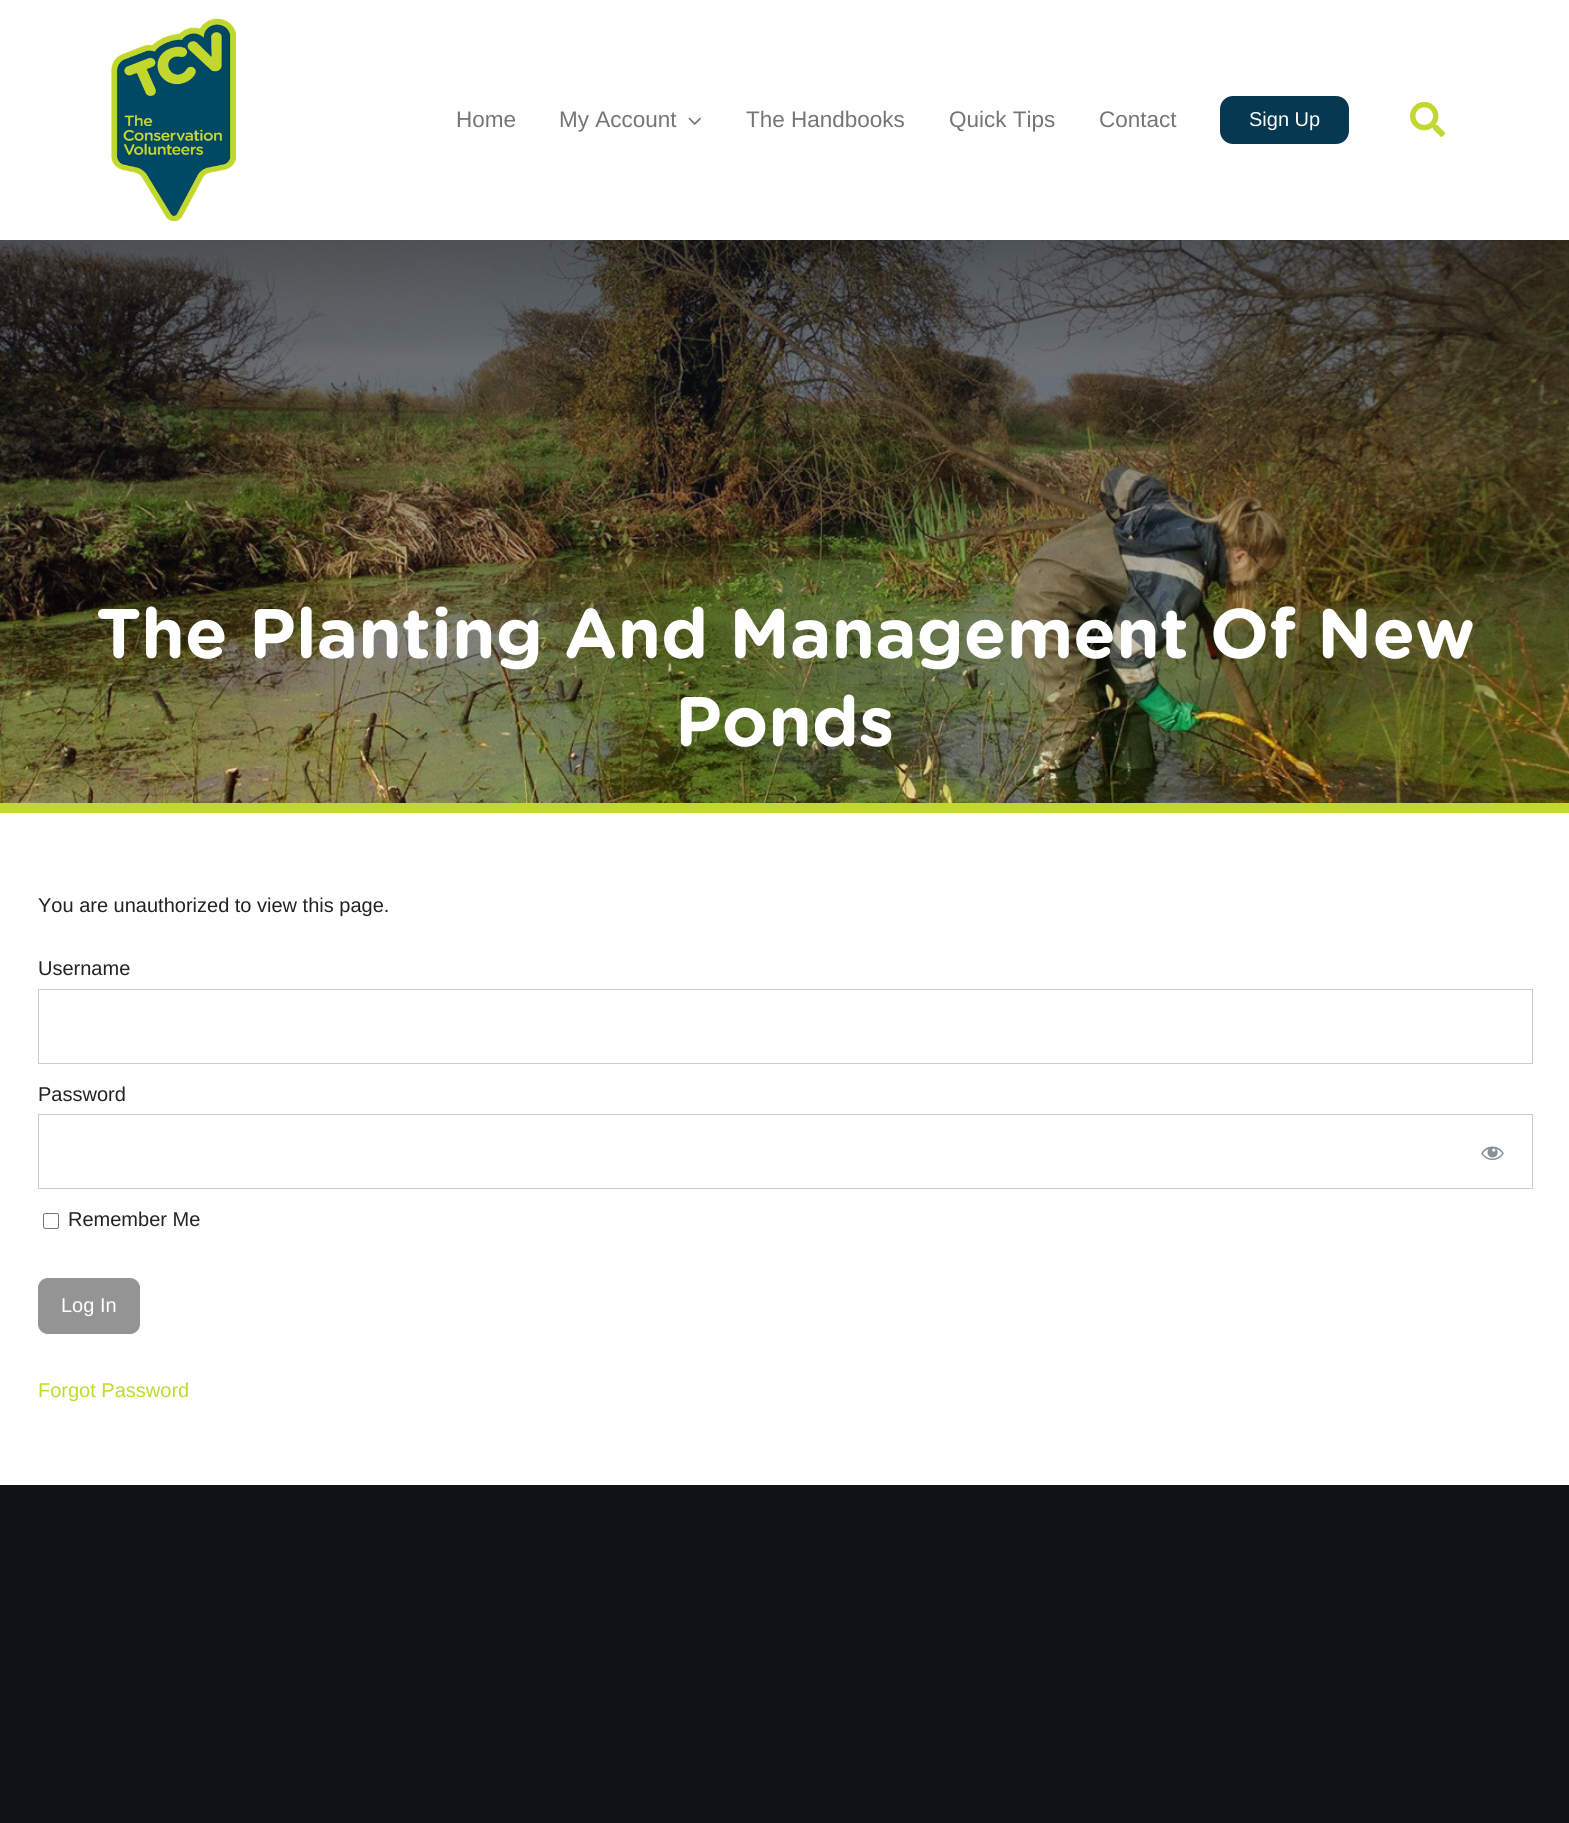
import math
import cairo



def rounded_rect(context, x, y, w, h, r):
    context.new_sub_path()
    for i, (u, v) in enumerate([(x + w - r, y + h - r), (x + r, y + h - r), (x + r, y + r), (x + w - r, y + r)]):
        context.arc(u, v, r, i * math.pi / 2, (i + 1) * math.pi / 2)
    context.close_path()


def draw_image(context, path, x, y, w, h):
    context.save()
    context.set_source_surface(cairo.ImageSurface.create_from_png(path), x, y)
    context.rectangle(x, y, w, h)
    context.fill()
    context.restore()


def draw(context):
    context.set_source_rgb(1, 1, 1)
    context.paint()
    draw_image(context, "images/1.png", 111, 18, 126, 204)
    draw_image(context, "images/2.png", 688, 117, 13, 8)
    context.set_source_rgb(7 / 255, 56 / 255, 81 / 255)
    rounded_rect(context, 1220, 96, 129, 48, 13)
    context.fill()
    draw_image(context, "images/3.png", 1410, 101, 35, 36)
    draw_image(context, "images/4.png", 0, 240, 1569, 563)
    context.set_source_rgb(193 / 255, 216 / 255, 47 / 255)
    context.rectangle(0, 803, 1569, 10)
    context.fill()
    context.rectangle(38.5, 989.5, 1494, 74)
    context.set_source_rgb(204 / 255, 204 / 255, 204 / 255)
    context.set_line_width(1)
    context.stroke()
    context.rectangle(38.5, 1114.5, 1494, 74)
    context.stroke()
    draw_image(context, "images/5.png", 1481, 1146, 23, 15)
    rounded_rect(context, 43.5, 1213.5, 15, 15, 2)
    context.set_source_rgb(118 / 255, 118 / 255, 118 / 255)
    context.stroke()
    context.set_source_rgb(148 / 255, 148 / 255, 148 / 255)
    rounded_rect(context, 38.5, 1278.5, 101, 55, 9.5)
    context.fill_preserve()
    context.stroke()
    context.set_source_rgb(15 / 255, 19 / 255, 23 / 255)
    context.rectangle(0, 1485, 1569, 338)
    context.fill()
    context.select_font_face("Liberation Sans")
    context.set_font_size(22.5)
    context.set_source_rgb(117 / 255, 117 / 255, 117 / 255)
    context.move_to(456, 127)
    context.show_text("Home")
    context.move_to(559, 127)
    context.show_text("My Account")
    context.move_to(746, 127)
    context.show_text("The Handbooks")
    context.move_to(949, 127)
    context.show_text("Quick Tips")
    context.move_to(1099, 127)
    context.show_text("Contact")
    context.set_font_size(20)
    context.set_source_rgb(1, 1, 1)
    context.move_to(1249, 126)
    context.show_text("Sign Up")
    context.select_font_face("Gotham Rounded", cairo.FontSlant.NORMAL, cairo.FontWeight.BOLD)
    context.set_font_size(70)
    context.move_to(96, 658)
    context.show_text("The Planting And Management Of New")
    context.move_to(675, 746)
    context.show_text("Ponds")
    context.select_font_face("Liberation Sans")
    context.set_font_size(20)
    context.set_source_rgb(34 / 255, 34 / 255, 34 / 255)
    context.move_to(38, 912)
    context.show_text("You are unauthorized to view this page.")
    context.move_to(38, 975)
    context.show_text("Username")
    context.move_to(38, 1101)
    context.show_text("Password")
    context.move_to(68, 1226)
    context.show_text("Remember Me")
    context.set_source_rgb(1, 1, 1)
    context.move_to(61, 1312)
    context.show_text("Log In")
    context.set_source_rgb(193 / 255, 216 / 255, 47 / 255)
    context.move_to(38, 1397)
    context.show_text("Forgot Password")


surface = cairo.ImageSurface(cairo.Format.RGB24, 1569, 1823)
context = cairo.Context(surface)
options = cairo.FontOptions()
options.set_hint_metrics(cairo.HintMetrics.OFF)
options.set_hint_style(cairo.HintStyle.NONE)
context.set_font_options(options)
context.set_miter_limit(4)
draw(context)
surface.write_to_png("out.png")
